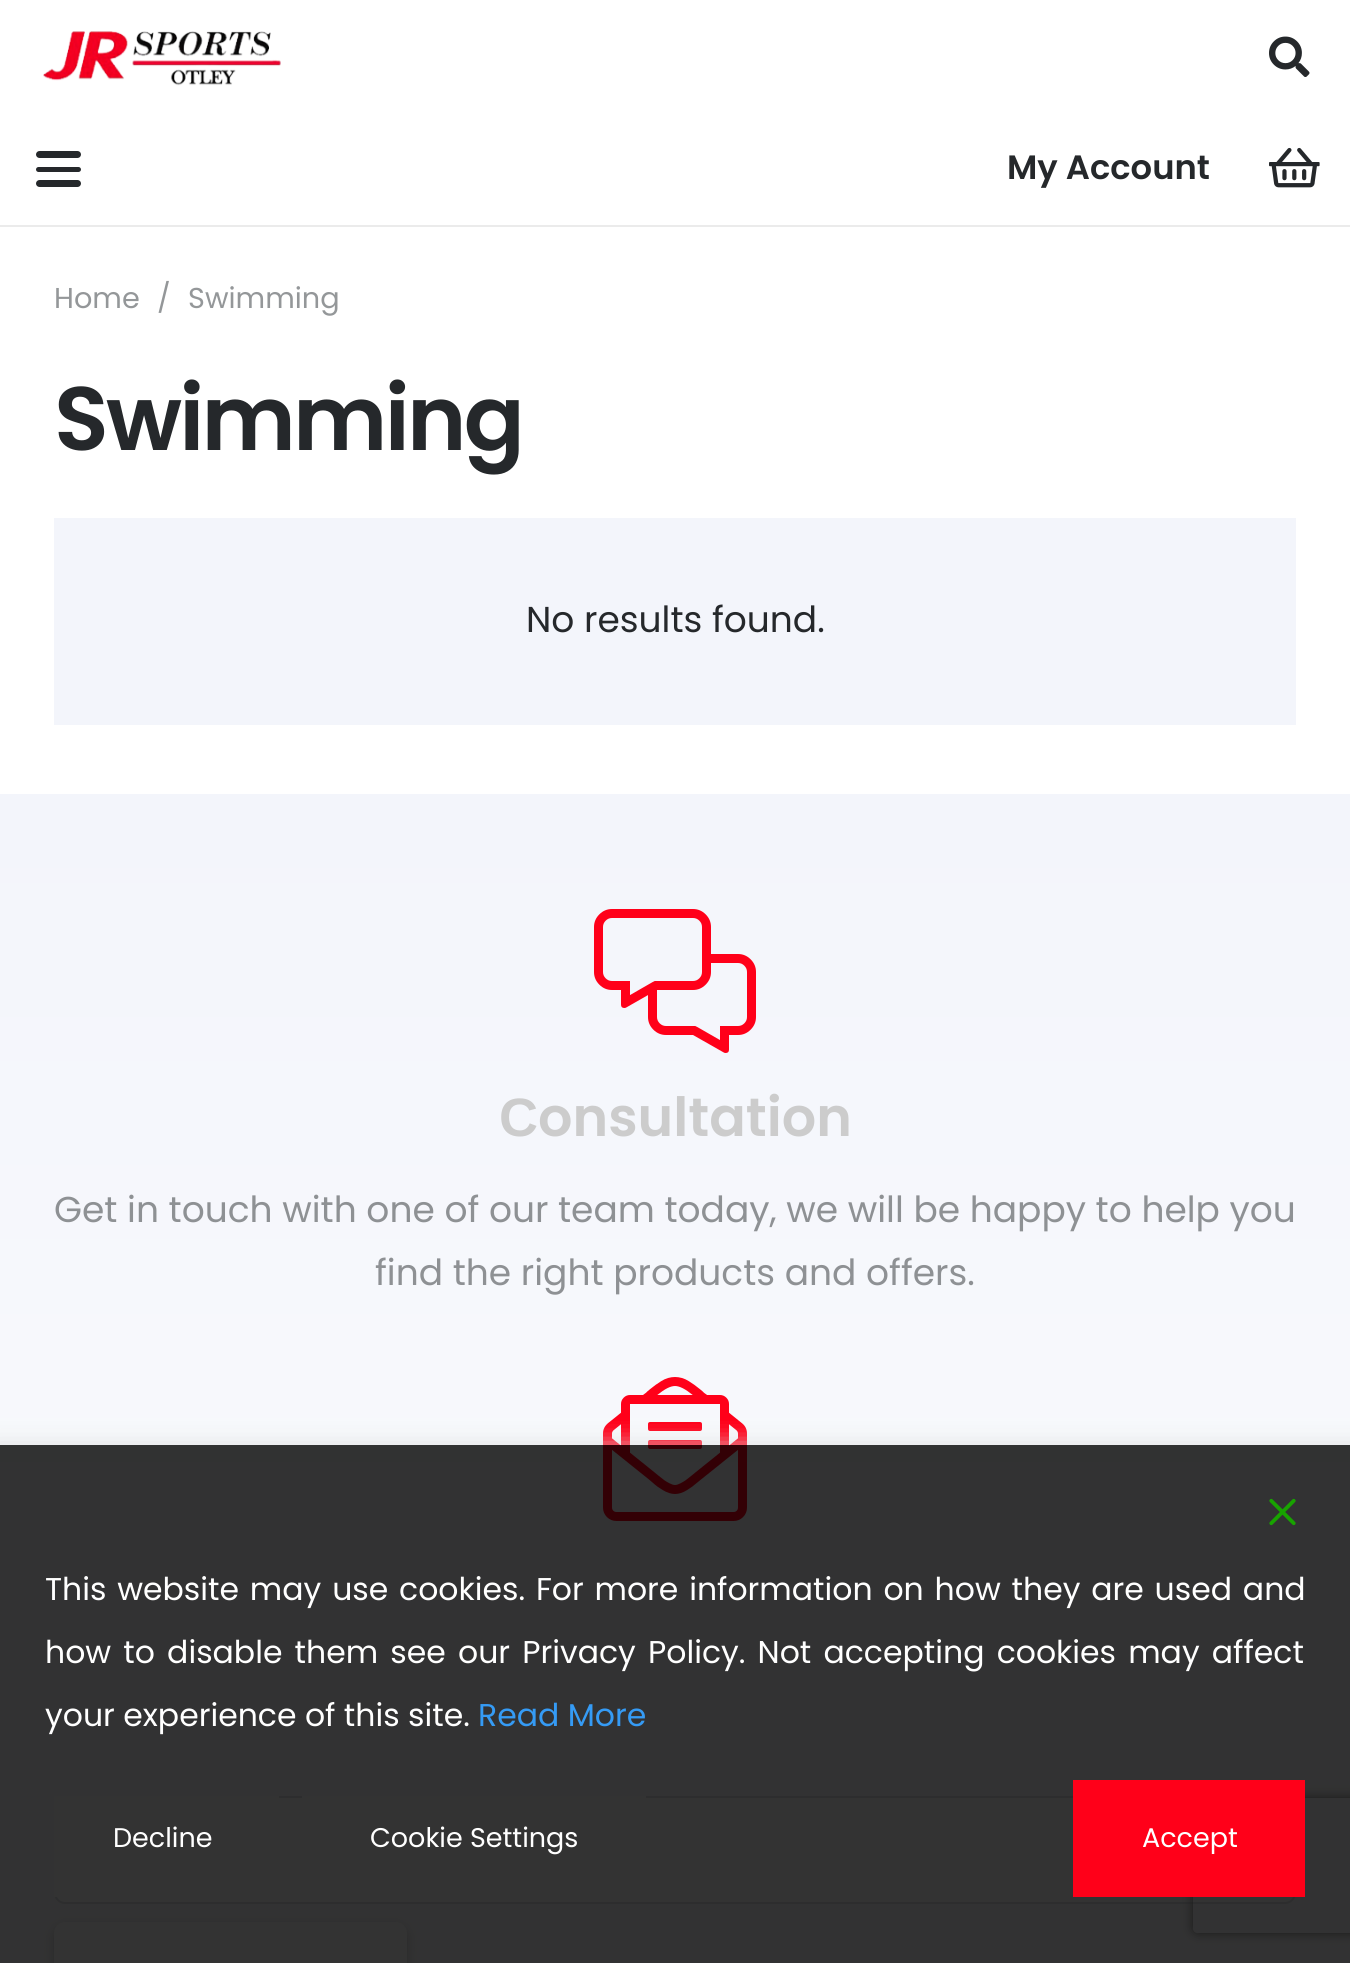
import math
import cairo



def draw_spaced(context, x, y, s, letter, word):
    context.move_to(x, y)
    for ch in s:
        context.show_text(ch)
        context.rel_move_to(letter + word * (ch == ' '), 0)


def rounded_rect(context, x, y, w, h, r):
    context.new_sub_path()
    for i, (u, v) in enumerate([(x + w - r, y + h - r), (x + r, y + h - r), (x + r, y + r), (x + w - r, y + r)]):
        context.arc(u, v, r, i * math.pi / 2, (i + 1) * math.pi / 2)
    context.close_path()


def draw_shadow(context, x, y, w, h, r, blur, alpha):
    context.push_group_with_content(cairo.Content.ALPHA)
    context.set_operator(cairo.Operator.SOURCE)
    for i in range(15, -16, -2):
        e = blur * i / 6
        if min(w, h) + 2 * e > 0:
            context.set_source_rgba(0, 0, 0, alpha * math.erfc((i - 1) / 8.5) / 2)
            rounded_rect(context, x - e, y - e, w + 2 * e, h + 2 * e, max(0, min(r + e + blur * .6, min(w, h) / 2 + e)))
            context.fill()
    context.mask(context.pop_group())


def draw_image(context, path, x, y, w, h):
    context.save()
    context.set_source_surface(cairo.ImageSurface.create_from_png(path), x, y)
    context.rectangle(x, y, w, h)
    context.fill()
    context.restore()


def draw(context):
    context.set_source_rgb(1, 1, 1)
    context.paint()
    draw_image(context, "images/1.png", 43, 31, 238, 55)
    draw_image(context, "images/2.png", 1269, 36, 41, 41)
    context.set_source_rgb(235 / 255, 235 / 255, 235 / 255)
    context.rectangle(0, 225, 1350, 2)
    context.fill()
    context.set_source_rgb(37 / 255, 40 / 255, 43 / 255)
    rounded_rect(context, 36, 167, 45, 5, 2.5)
    context.fill()
    rounded_rect(context, 36, 151, 45, 7, 3.5)
    context.fill()
    rounded_rect(context, 36, 180, 45, 7, 3.5)
    context.fill()
    draw_image(context, "images/3.png", 1269, 147, 51, 41)
    context.set_source_rgb(243 / 255, 245 / 255, 251 / 255)
    context.rectangle(54, 518, 1242, 207)
    context.fill()
    gradient = cairo.LinearGradient(675, 794, 675, 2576)
    gradient.add_color_stop_rgba(0, 243 / 255, 245 / 255, 251 / 255, 1)
    gradient.add_color_stop_rgba(1, 1, 1, 1, 1)
    context.set_source(gradient)
    context.rectangle(0, 794, 1350, 1169)
    context.fill()
    draw_image(context, "images/4.png", 594, 909, 162, 144)
    draw_image(context, "images/5.png", 603, 1377, 144, 144)
    context.set_source_rgb(1, 1, 1)
    rounded_rect(context, 55, 1797, 1240, 106, 10)
    context.fill_preserve()
    context.set_source_rgb(223 / 255, 226 / 255, 230 / 255)
    context.stroke()
    context.set_source_rgb(0, 0, 0)
    draw_shadow(context, 54, 1926, 353, 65, 11, 5.5, 0.2)
    context.set_source_rgb(1, 1, 1)
    rounded_rect(context, 54, 1922, 353, 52, 11)
    context.fill()
    context.save()
    context.rectangle(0, 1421, 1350, 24)
    context.clip()
    context.set_source_rgb(221 / 255, 221 / 255, 221 / 255)
    draw_shadow(context, -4, 1447, 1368, 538, 0, 12.5, 1)
    context.restore()
    context.save()
    context.set_fill_rule(cairo.FillRule.EVEN_ODD)
    context.new_path()
    context.move_to(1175, 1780)
    context.line_to(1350, 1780)
    context.line_to(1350, 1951)
    context.line_to(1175, 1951)
    context.close_path()
    context.move_to(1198, 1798)
    context.line_to(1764, 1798)
    context.curve_to(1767, 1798, 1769, 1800, 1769, 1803)
    context.line_to(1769, 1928)
    context.curve_to(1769, 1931, 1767, 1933, 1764, 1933)
    context.line_to(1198, 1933)
    context.curve_to(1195, 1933, 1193, 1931, 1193, 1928)
    context.line_to(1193, 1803)
    context.curve_to(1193, 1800, 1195, 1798, 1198, 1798)
    context.close_path()
    context.clip()
    context.set_source_rgb(128 / 255, 128 / 255, 128 / 255)
    draw_shadow(context, 1193, 1798, 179, 135, 5, 5.5, 1)
    context.restore()
    context.set_source_rgba(0, 0, 0, 0.8)
    context.rectangle(0, 1445, 1350, 518)
    context.fill()
    draw_image(context, "images/6.png", 1269, 1498, 27, 28)
    context.set_source_rgb(51 / 255, 51 / 255, 51 / 255)
    context.rectangle(54, 1796, 225, 101)
    context.fill()
    context.rectangle(302, 1796, 344, 2)
    context.fill()
    context.set_source_rgb(1, 0, 25 / 255)
    context.rectangle(1073, 1780, 232, 117)
    context.fill()
    context.select_font_face("Poppins SemiBold")
    context.set_font_size(33.75)
    context.set_source_rgb(37 / 255, 40 / 255, 43 / 255)
    context.move_to(1007, 179)
    context.show_text("My Account")
    context.select_font_face("Poppins")
    context.set_font_size(28.75)
    context.set_source_rgb(148 / 255, 151 / 255, 153 / 255)
    context.move_to(54, 308)
    context.show_text("Home")
    context.move_to(157, 308)
    context.show_text("/")
    context.move_to(188, 308)
    context.show_text("Swimming")
    context.select_font_face("Poppins SemiBold")
    context.set_font_size(90)
    context.set_source_rgb(37 / 255, 40 / 255, 43 / 255)
    draw_spaced(context, 54, 450, "Swimming", -2.75, 0)
    context.select_font_face("Poppins")
    context.set_font_size(36)
    context.move_to(526, 632)
    context.show_text("No results found.")
    context.select_font_face("Liberation Sans", cairo.FontSlant.NORMAL, cairo.FontWeight.BOLD)
    context.set_font_size(54)
    context.set_source_rgb(204 / 255, 204 / 255, 204 / 255)
    context.move_to(499, 1136)
    context.show_text("С")
    context.select_font_face("Poppins SemiBold")
    context.move_to(538, 1136)
    context.show_text("onsultation")
    context.select_font_face("Poppins")
    context.set_font_size(36)
    context.set_source_rgb(142 / 255, 145 / 255, 148 / 255)
    context.move_to(54, 1222)
    context.show_text("Get in touch with one of our team today, we will be happy to help you")
    context.move_to(375, 1285)
    context.show_text("find the right products and offers.")
    context.set_font_size(31.5)
    context.set_source_rgb(1, 1, 1)
    draw_spaced(context, 45, 1600, "This website may use cookies. For more information on how they are used and", 0, 2.4)
    draw_spaced(context, 45, 1663, "how to disable them see our Privacy Policy. Not accepting cookies may affect", 0, 3.75)
    context.move_to(45, 1726)
    context.show_text("your experience of this site.")
    context.set_source_rgb(53 / 255, 155 / 255, 245 / 255)
    context.move_to(478, 1726)
    context.show_text("Read More")
    context.set_font_size(27)
    context.set_source_rgb(1, 1, 1)
    context.move_to(113, 1847)
    context.show_text("Decline")
    context.move_to(370, 1847)
    context.show_text("Cookie Settings")
    context.move_to(1142, 1847)
    context.show_text("Accept")


surface = cairo.ImageSurface(cairo.Format.RGB24, 1350, 1963)
context = cairo.Context(surface)
options = cairo.FontOptions()
options.set_hint_metrics(cairo.HintMetrics.OFF)
options.set_hint_style(cairo.HintStyle.NONE)
context.set_font_options(options)
context.set_miter_limit(4)
draw(context)
surface.write_to_png("out.png")
